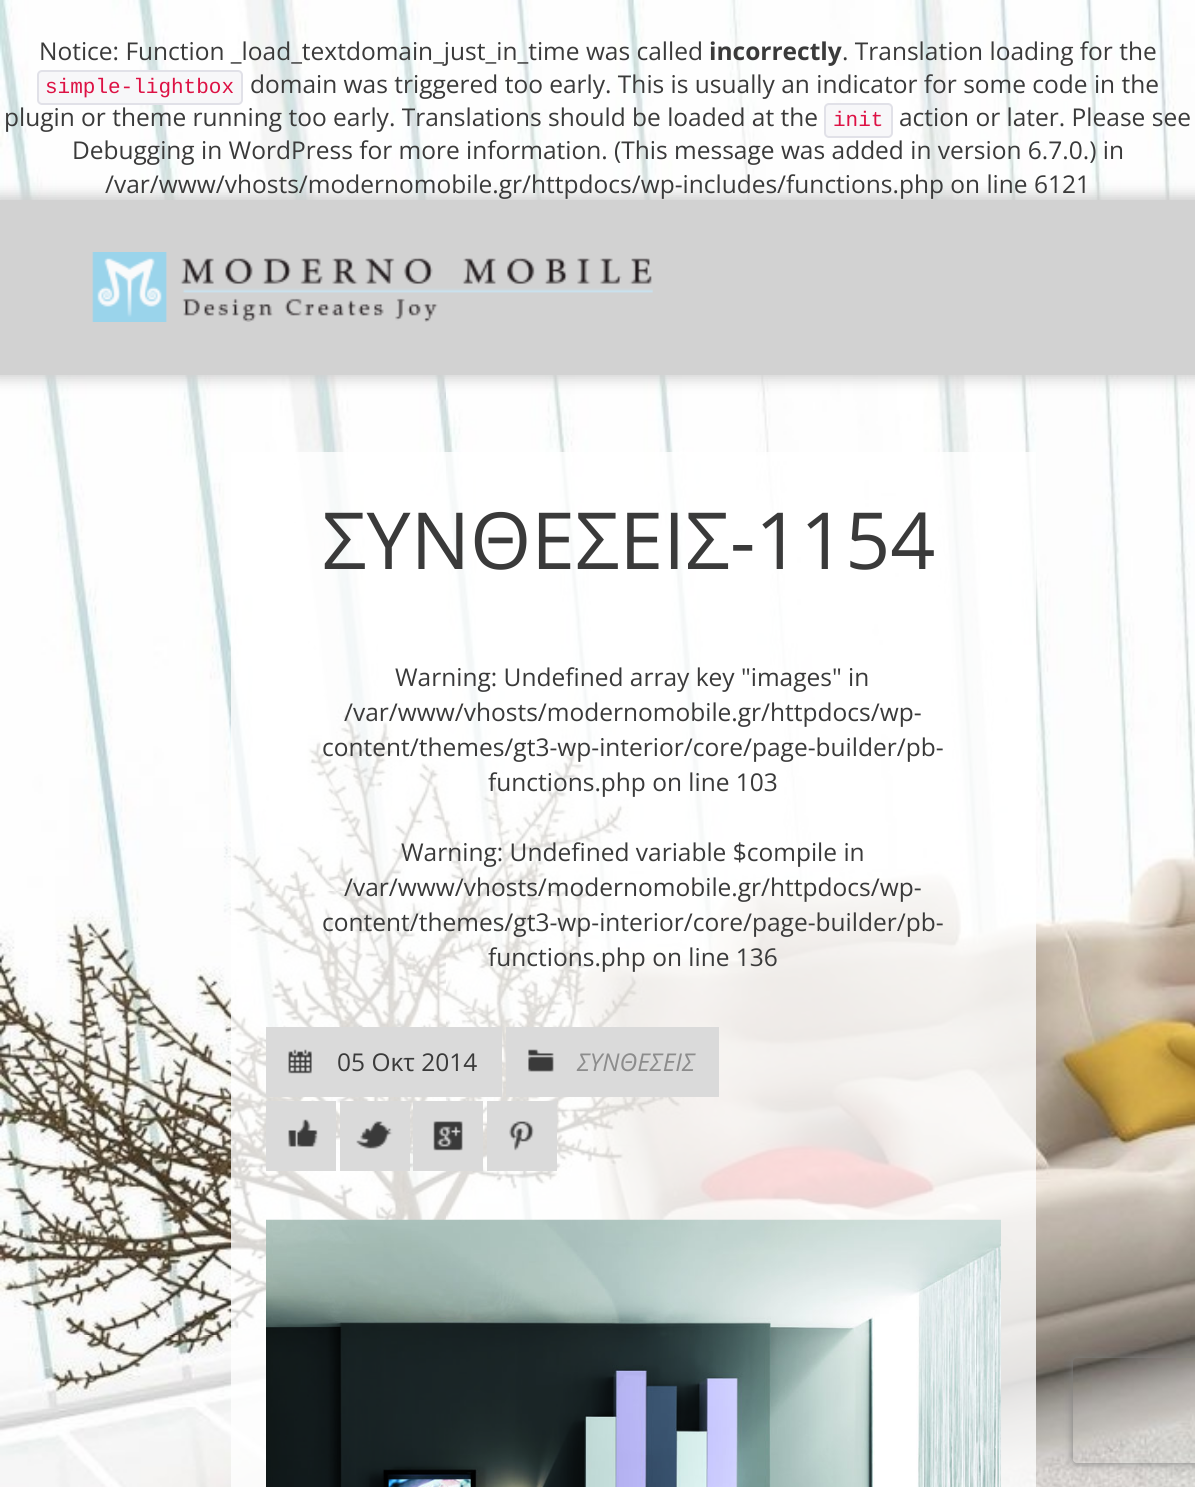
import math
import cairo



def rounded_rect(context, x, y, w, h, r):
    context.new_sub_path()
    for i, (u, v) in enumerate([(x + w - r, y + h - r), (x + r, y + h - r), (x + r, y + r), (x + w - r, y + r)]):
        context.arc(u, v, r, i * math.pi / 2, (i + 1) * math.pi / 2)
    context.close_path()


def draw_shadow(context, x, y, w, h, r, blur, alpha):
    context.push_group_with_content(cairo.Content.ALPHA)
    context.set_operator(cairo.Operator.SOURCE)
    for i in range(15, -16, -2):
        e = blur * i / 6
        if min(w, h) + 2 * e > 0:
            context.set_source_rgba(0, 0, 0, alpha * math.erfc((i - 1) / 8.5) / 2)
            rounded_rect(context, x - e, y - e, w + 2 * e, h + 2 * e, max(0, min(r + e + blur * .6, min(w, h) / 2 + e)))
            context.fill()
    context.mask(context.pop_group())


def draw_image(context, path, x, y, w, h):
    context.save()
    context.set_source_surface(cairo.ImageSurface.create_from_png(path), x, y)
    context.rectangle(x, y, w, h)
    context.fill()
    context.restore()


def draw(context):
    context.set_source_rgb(1, 1, 1)
    context.paint()
    draw_image(context, "images/1.png", 0, 0, 1195, 1487)
    context.set_source_rgb(247 / 255, 247 / 255, 249 / 255)
    rounded_rect(context, 38, 71, 204, 33, 4)
    context.fill_preserve()
    context.set_source_rgb(225 / 255, 225 / 255, 232 / 255)
    context.stroke()
    context.set_source_rgb(247 / 255, 247 / 255, 249 / 255)
    rounded_rect(context, 825, 104, 67, 33, 4)
    context.fill_preserve()
    context.set_source_rgb(225 / 255, 225 / 255, 232 / 255)
    context.stroke()
    context.set_source_rgb(204 / 255, 204 / 255, 204 / 255)
    draw_shadow(context, -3, 196, 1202, 182, 0, 7, 1)
    context.set_source_rgb(210 / 255, 210 / 255, 210 / 255)
    context.rectangle(0, 200, 1195, 175)
    context.fill()
    draw_image(context, "images/2.png", 92, 252, 561, 70)
    context.set_source_rgba(1, 1, 1, 0.8)
    context.rectangle(231, 452, 805, 1035)
    context.fill()
    context.set_source_rgb(218 / 255, 218 / 255, 218 / 255)
    context.rectangle(266, 1027, 236, 70)
    context.fill()
    draw_image(context, "images/3.png", 288, 1049, 24, 25)
    context.rectangle(506, 1027, 213, 70)
    context.fill()
    draw_image(context, "images/4.png", 528, 1049, 26, 23)
    context.rectangle(266, 1101, 70, 70)
    context.fill()
    draw_image(context, "images/5.png", 288, 1119, 30, 28)
    context.rectangle(340, 1101, 70, 70)
    context.fill()
    draw_image(context, "images/6.png", 356, 1121, 37, 28)
    context.rectangle(413, 1101, 70, 70)
    context.fill()
    draw_image(context, "images/7.png", 433, 1121, 30, 30)
    context.rectangle(487, 1101, 70, 70)
    context.fill()
    draw_image(context, "images/8.png", 509, 1121, 25, 30)
    draw_image(context, "images/9.png", 266, 1219, 735, 268)
    context.save()
    context.set_fill_rule(cairo.FillRule.EVEN_ODD)
    context.new_path()
    context.move_to(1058, 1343)
    context.line_to(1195, 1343)
    context.line_to(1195, 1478)
    context.line_to(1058, 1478)
    context.close_path()
    context.move_to(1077, 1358)
    context.line_to(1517, 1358)
    context.curve_to(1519, 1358, 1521, 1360, 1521, 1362)
    context.line_to(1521, 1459)
    context.curve_to(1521, 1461, 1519, 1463, 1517, 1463)
    context.line_to(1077, 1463)
    context.curve_to(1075, 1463, 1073, 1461, 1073, 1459)
    context.line_to(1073, 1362)
    context.curve_to(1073, 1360, 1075, 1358, 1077, 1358)
    context.close_path()
    context.clip()
    context.set_source_rgb(128 / 255, 128 / 255, 128 / 255)
    draw_shadow(context, 1073, 1358, 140, 105, 4, 4.5, 1)
    context.restore()
    context.select_font_face("Open Sans")
    context.set_font_size(24.5)
    context.set_source_rgb(58 / 255, 58 / 255, 58 / 255)
    context.move_to(39, 60)
    context.show_text("Notice: Function _load_textdomain_just_in_time was called")
    context.select_font_face("Open Sans", cairo.FontSlant.NORMAL, cairo.FontWeight.BOLD)
    context.move_to(709, 60)
    context.show_text("incorrectly")
    context.select_font_face("Open Sans")
    context.move_to(842, 60)
    context.show_text(". Translation loading for the")
    context.select_font_face("Liberation Mono")
    context.set_font_size(21)
    context.set_source_rgb(221 / 255, 17 / 255, 68 / 255)
    context.move_to(45, 93)
    context.show_text("simple-lightbox")
    context.select_font_face("Open Sans")
    context.set_font_size(24.5)
    context.set_source_rgb(58 / 255, 58 / 255, 58 / 255)
    context.move_to(250, 93)
    context.show_text("domain was triggered too early. This is usually an indicator for some code in the")
    context.move_to(4, 126)
    context.show_text("plugin or theme running too early. Translations should be loaded at the")
    context.select_font_face("Liberation Mono")
    context.set_font_size(21)
    context.set_source_rgb(221 / 255, 17 / 255, 68 / 255)
    context.move_to(833, 126)
    context.show_text("init")
    context.select_font_face("Open Sans")
    context.set_font_size(24.5)
    context.set_source_rgb(58 / 255, 58 / 255, 58 / 255)
    context.move_to(899, 126)
    context.show_text("action or later. Please see")
    context.move_to(72, 159)
    context.show_text("Debugging in WordPress for more information. (This message was added in version 6.7.0.) in")
    context.move_to(105, 193)
    context.show_text("/var/www/vhosts/modernomobile.gr/httpdocs/wp-includes/functions.php on line 6121")
    context.set_font_size(78.75)
    context.move_to(322, 569)
    context.show_text("ΣΥΝΘΕΣΕΙΣ-1154")
    context.set_font_size(24.5)
    context.move_to(395, 686)
    context.show_text("Warning: Undefined array key \"images\" in")
    context.move_to(344, 721)
    context.show_text("/var/www/vhosts/modernomobile.gr/httpdocs/wp-")
    context.move_to(322, 756)
    context.show_text("content/themes/gt3-wp-interior/core/page-builder/pb-")
    context.move_to(488, 791)
    context.show_text("functions.php on line 103")
    context.move_to(401, 861)
    context.show_text("Warning: Undefined variable $compile in")
    context.move_to(344, 896)
    context.show_text("/var/www/vhosts/modernomobile.gr/httpdocs/wp-")
    context.move_to(322, 931)
    context.show_text("content/themes/gt3-wp-interior/core/page-builder/pb-")
    context.move_to(488, 966)
    context.show_text("functions.php on line 136")
    context.move_to(337, 1071)
    context.show_text("05 Οκτ 2014")
    context.select_font_face("Open Sans", cairo.FontSlant.ITALIC)
    context.set_source_rgb(140 / 255, 140 / 255, 140 / 255)
    context.move_to(577, 1071)
    context.show_text("ΣΥΝΘΕΣΕΙΣ")


surface = cairo.ImageSurface(cairo.Format.RGB24, 1195, 1487)
context = cairo.Context(surface)
options = cairo.FontOptions()
options.set_hint_metrics(cairo.HintMetrics.OFF)
options.set_hint_style(cairo.HintStyle.NONE)
context.set_font_options(options)
context.set_miter_limit(4)
draw(context)
surface.write_to_png("out.png")
